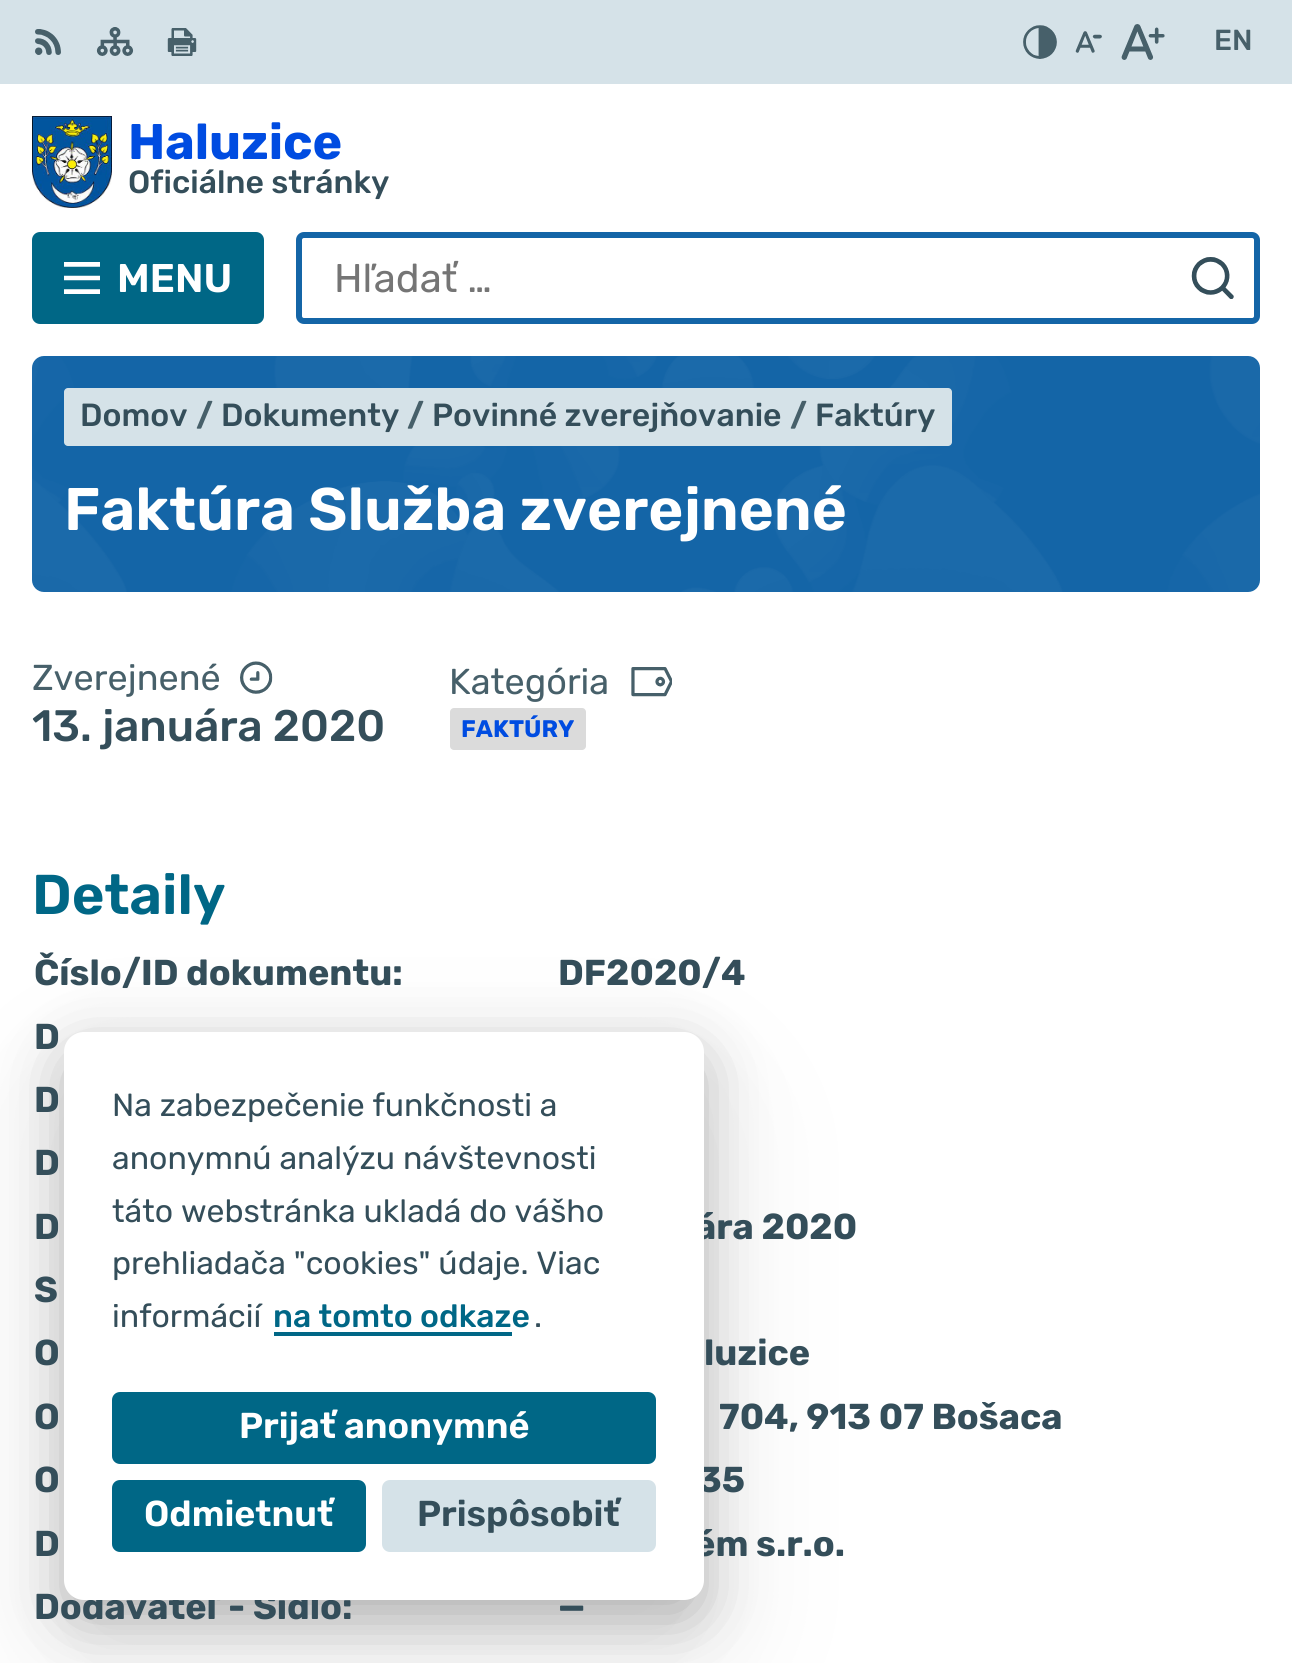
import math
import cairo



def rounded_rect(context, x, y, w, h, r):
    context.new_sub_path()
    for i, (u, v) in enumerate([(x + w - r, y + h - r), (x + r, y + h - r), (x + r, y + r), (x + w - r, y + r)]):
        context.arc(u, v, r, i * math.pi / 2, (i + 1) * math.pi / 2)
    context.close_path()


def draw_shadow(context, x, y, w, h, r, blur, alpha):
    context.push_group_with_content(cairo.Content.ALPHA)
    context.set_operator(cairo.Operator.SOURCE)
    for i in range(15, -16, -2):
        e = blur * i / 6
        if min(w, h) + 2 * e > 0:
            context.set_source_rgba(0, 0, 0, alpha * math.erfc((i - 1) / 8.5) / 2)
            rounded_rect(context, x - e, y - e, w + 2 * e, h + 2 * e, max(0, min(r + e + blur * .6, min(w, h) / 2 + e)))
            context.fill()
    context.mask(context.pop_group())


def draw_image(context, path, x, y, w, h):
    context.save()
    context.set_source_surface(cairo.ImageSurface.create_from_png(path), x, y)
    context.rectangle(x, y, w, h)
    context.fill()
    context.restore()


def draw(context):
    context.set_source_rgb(1, 1, 1)
    context.paint()
    context.set_source_rgb(213 / 255, 226 / 255, 232 / 255)
    context.rectangle(0, 0, 1292, 84)
    context.fill()
    draw_image(context, "images/1.png", 35, 29, 26, 26)
    draw_image(context, "images/2.png", 96, 27, 38, 29)
    draw_image(context, "images/3.png", 167, 28, 30, 28)
    draw_image(context, "images/4.png", 1023, 25, 34, 34)
    draw_image(context, "images/5.png", 1075, 31, 27, 22)
    draw_image(context, "images/6.png", 1121, 24, 44, 36)
    draw_image(context, "images/7.png", 32, 116, 80, 92)
    context.set_source_rgb(0, 103 / 255, 134 / 255)
    rounded_rect(context, 32, 232, 232, 92, 8)
    context.fill()
    draw_image(context, "images/8.png", 64, 262, 36, 32)
    rounded_rect(context, 299, 235, 958, 86, 5)
    context.set_source_rgb(20 / 255, 101 / 255, 167 / 255)
    context.set_line_width(6)
    context.stroke()
    draw_image(context, "images/9.png", 1191, 257, 43, 42)
    rounded_rect(context, 32, 356, 1228, 236, 12)
    context.fill()
    draw_image(context, "images/10.png", 32, 356, 1228, 236)
    context.set_source_rgb(213 / 255, 226 / 255, 232 / 255)
    rounded_rect(context, 64, 388, 888, 58, 4)
    context.fill()
    draw_image(context, "images/11.png", 240, 661, 33, 33)
    draw_image(context, "images/12.png", 631, 667, 41, 30)
    context.set_source_rgb(219 / 255, 219 / 255, 219 / 255)
    rounded_rect(context, 450, 708, 136, 42, 4)
    context.fill()
    context.set_source_rgb(0, 0, 0)
    draw_shadow(context, 64, 1092, 640, 568, 20, 90, 0.05)
    draw_shadow(context, 64, 1072, 640, 568, 20, 60, 0.05)
    draw_shadow(context, 64, 1052, 640, 568, 20, 30, 0.25)
    context.select_font_face("Rubik Medium")
    context.set_font_size(29)
    context.set_source_rgb(71 / 255, 96 / 255, 106 / 255)
    context.move_to(1214, 50)
    context.show_text("EN")
    context.select_font_face("Rubik", cairo.FontSlant.NORMAL, cairo.FontWeight.BOLD)
    context.set_font_size(50)
    context.set_source_rgb(0, 76 / 255, 225 / 255)
    context.move_to(128, 159)
    context.show_text("Haluzice")
    context.select_font_face("Rubik Medium")
    context.set_font_size(32)
    context.set_source_rgb(52 / 255, 78 / 255, 90 / 255)
    context.move_to(128, 193)
    context.show_text("Oficiálne stránky")
    context.select_font_face("Rubik SemiBold")
    context.set_font_size(40)
    context.set_source_rgb(1, 1, 1)
    context.move_to(117, 292)
    context.show_text("MENU")
    context.select_font_face("Rubik")
    context.set_source_rgb(117 / 255, 117 / 255, 117 / 255)
    context.move_to(334, 292)
    context.show_text("Hľadať …")
    context.select_font_face("Rubik Medium")
    context.set_font_size(32)
    context.set_source_rgb(52 / 255, 78 / 255, 90 / 255)
    context.move_to(80, 426)
    context.show_text("Domov")
    context.select_font_face("Rubik", cairo.FontSlant.NORMAL, cairo.FontWeight.BOLD)
    context.set_source_rgb(71 / 255, 96 / 255, 106 / 255)
    context.move_to(196, 426)
    context.show_text("/")
    context.select_font_face("Rubik Medium")
    context.set_source_rgb(52 / 255, 78 / 255, 90 / 255)
    context.move_to(221, 426)
    context.show_text("Dokumenty")
    context.select_font_face("Rubik", cairo.FontSlant.NORMAL, cairo.FontWeight.BOLD)
    context.set_source_rgb(71 / 255, 96 / 255, 106 / 255)
    context.move_to(407, 426)
    context.show_text("/")
    context.select_font_face("Rubik Medium")
    context.set_source_rgb(52 / 255, 78 / 255, 90 / 255)
    context.move_to(432, 426)
    context.show_text("Povinné zverejňovanie")
    context.select_font_face("Rubik", cairo.FontSlant.NORMAL, cairo.FontWeight.BOLD)
    context.set_source_rgb(71 / 255, 96 / 255, 106 / 255)
    context.move_to(790, 426)
    context.show_text("/")
    context.select_font_face("Rubik Medium")
    context.set_source_rgb(52 / 255, 78 / 255, 90 / 255)
    context.move_to(815, 426)
    context.show_text("Faktúry")
    context.select_font_face("Rubik SemiBold")
    context.set_font_size(60)
    context.set_source_rgb(1, 1, 1)
    context.move_to(64, 530)
    context.show_text("Faktúra Služba zverejnené")
    context.select_font_face("Rubik")
    context.set_font_size(36)
    context.set_source_rgb(71 / 255, 96 / 255, 106 / 255)
    context.move_to(32, 690)
    context.show_text("Zverejnené")
    context.select_font_face("Rubik Medium")
    context.set_font_size(44)
    context.set_source_rgb(52 / 255, 78 / 255, 90 / 255)
    context.move_to(32, 741)
    context.show_text("13. januára 2020")
    context.select_font_face("Rubik")
    context.set_font_size(36)
    context.set_source_rgb(71 / 255, 96 / 255, 106 / 255)
    context.move_to(449, 694)
    context.show_text("Kategória")
    context.select_font_face("Rubik", cairo.FontSlant.NORMAL, cairo.FontWeight.BOLD)
    context.set_font_size(24)
    context.set_source_rgb(0, 76 / 255, 225 / 255)
    context.move_to(461, 737)
    context.show_text("FAKTÚRY")
    context.select_font_face("Rubik SemiBold")
    context.set_font_size(56)
    context.set_source_rgb(0, 103 / 255, 134 / 255)
    context.move_to(32, 914)
    context.show_text("Detaily")
    context.select_font_face("Rubik", cairo.FontSlant.NORMAL, cairo.FontWeight.BOLD)
    context.set_font_size(36)
    context.set_source_rgb(52 / 255, 78 / 255, 90 / 255)
    context.move_to(34, 985)
    context.show_text("Číslo/ID dokumentu:")
    context.move_to(558, 985)
    context.show_text("DF2020/4")
    context.move_to(34, 1049)
    context.show_text("D")
    context.move_to(34, 1112)
    context.show_text("D")
    context.move_to(34, 1175)
    context.show_text("D")
    context.move_to(34, 1239)
    context.show_text("D")
    context.move_to(695, 1239)
    context.show_text("ára 2020")
    context.move_to(34, 1302)
    context.show_text("S")
    context.move_to(34, 1365)
    context.show_text("O")
    context.move_to(704, 1365)
    context.show_text("luzice")
    context.move_to(34, 1429)
    context.show_text("O")
    context.move_to(719, 1429)
    context.show_text("704, 913 07 Bošaca")
    context.move_to(34, 1492)
    context.show_text("O")
    context.move_to(698, 1492)
    context.show_text("35")
    context.move_to(34, 1556)
    context.show_text("D")
    context.move_to(694, 1556)
    context.show_text("ém s.r.o.")
    context.move_to(34, 1619)
    context.show_text("Dodávateľ - Sídlo:")
    context.move_to(558, 1619)
    context.show_text("—")
    context.set_source_rgb(1, 1, 1)
    rounded_rect(context, 64, 1032, 640, 568, 20)
    context.fill()
    context.select_font_face("Rubik")
    context.set_font_size(32)
    context.set_source_rgb(52 / 255, 78 / 255, 90 / 255)
    context.move_to(112, 1116)
    context.show_text("Na zabezpečenie funkčnosti a")
    context.move_to(112, 1169)
    context.show_text("anonymnú analýzu návštevnosti")
    context.move_to(112, 1222)
    context.show_text("táto webstránka ukladá do vášho")
    context.move_to(112, 1274)
    context.show_text("prehliadača \"cookies\" údaje. Viac")
    context.move_to(112, 1327)
    context.show_text("informácií")
    context.select_font_face("Rubik Medium")
    context.set_source_rgb(0, 103 / 255, 134 / 255)
    context.move_to(273, 1327)
    context.show_text("na tomto odkaze")
    context.rectangle(274, 1332, 238, 4)
    context.fill()
    context.select_font_face("Rubik")
    context.set_source_rgb(52 / 255, 78 / 255, 90 / 255)
    context.move_to(534, 1327)
    context.show_text(".")
    context.set_source_rgb(0, 103 / 255, 134 / 255)
    rounded_rect(context, 112, 1392, 544, 72, 8)
    context.fill()
    context.select_font_face("Rubik SemiBold")
    context.set_font_size(36)
    context.set_source_rgb(1, 1, 1)
    context.move_to(239, 1438)
    context.show_text("Prijať anonymné")
    context.set_source_rgb(0, 103 / 255, 134 / 255)
    rounded_rect(context, 112, 1480, 254, 72, 8)
    context.fill()
    context.set_source_rgb(1, 1, 1)
    context.move_to(144, 1526)
    context.show_text("Odmietnuť")
    context.set_source_rgb(213 / 255, 226 / 255, 232 / 255)
    rounded_rect(context, 382, 1480, 274, 72, 8)
    context.fill()
    context.set_source_rgb(52 / 255, 78 / 255, 90 / 255)
    context.move_to(417, 1526)
    context.show_text("Prispôsobiť")


surface = cairo.ImageSurface(cairo.Format.RGB24, 1292, 1663)
context = cairo.Context(surface)
options = cairo.FontOptions()
options.set_hint_metrics(cairo.HintMetrics.OFF)
options.set_hint_style(cairo.HintStyle.NONE)
context.set_font_options(options)
context.set_miter_limit(4)
draw(context)
surface.write_to_png("out.png")
